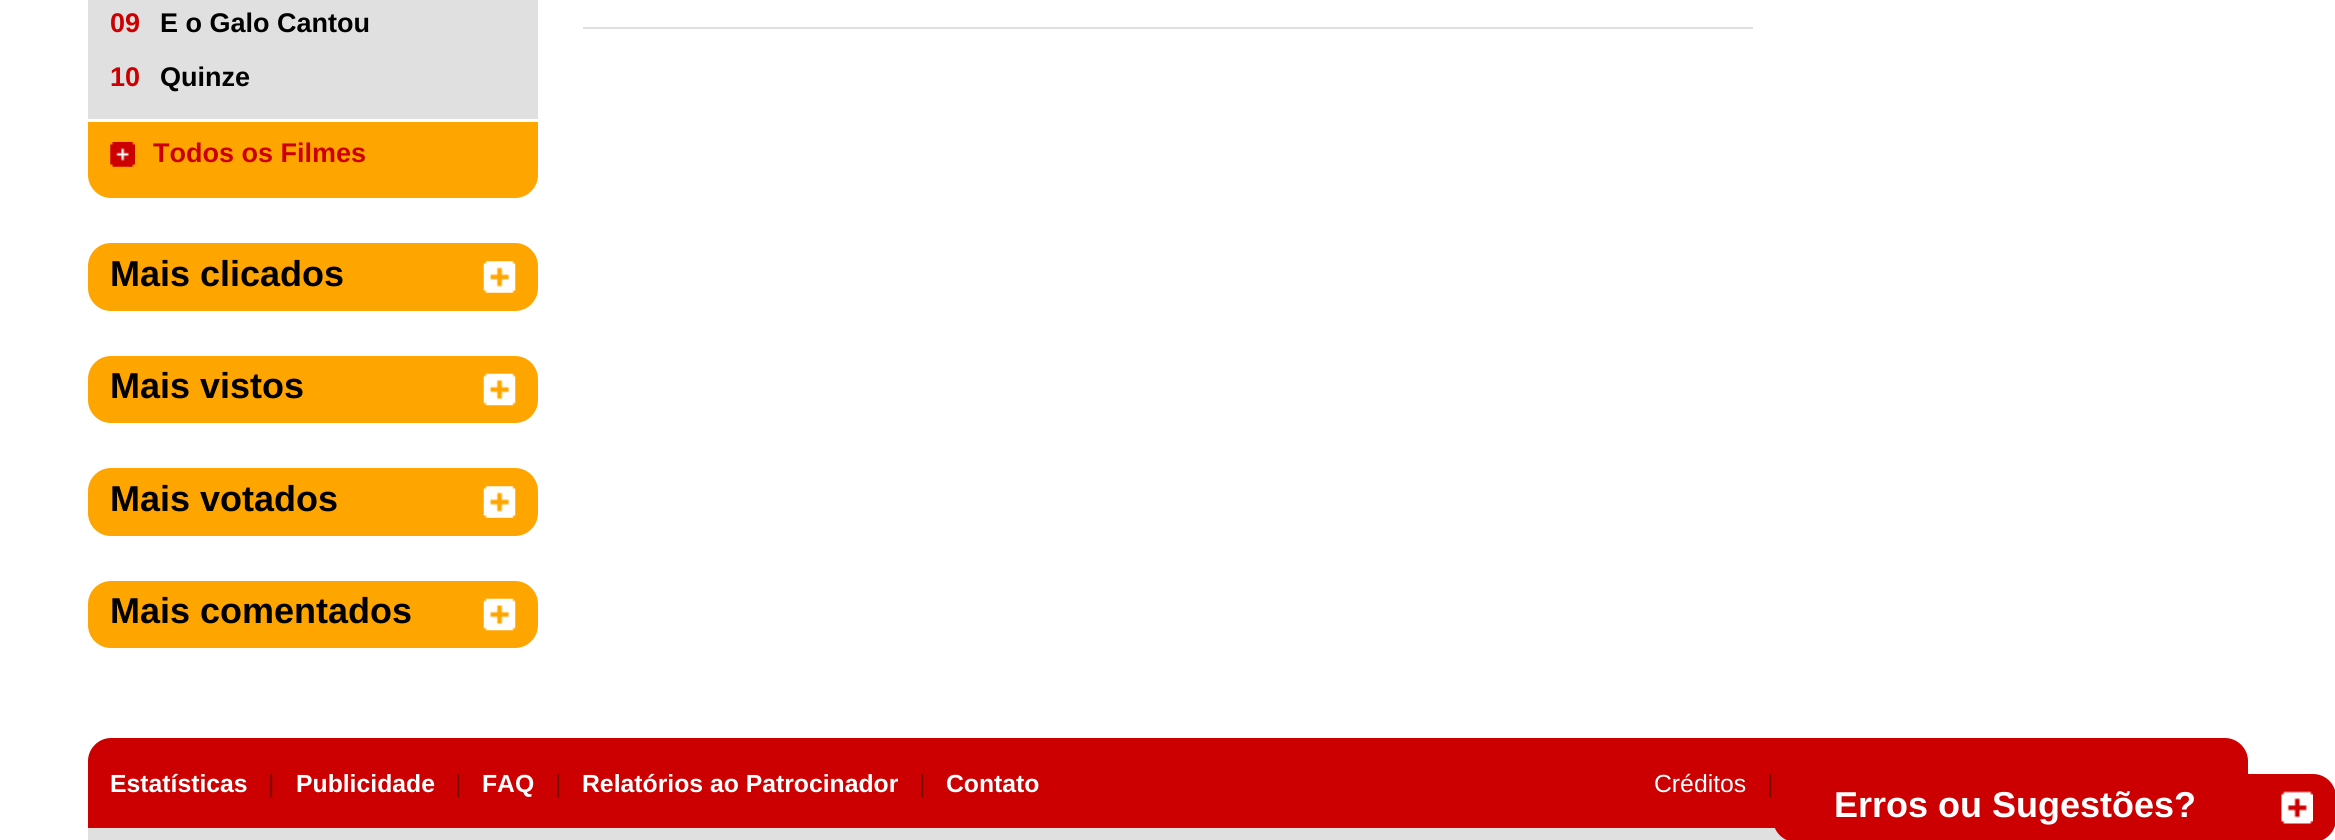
import math
import cairo



def rounded_rect(context, x, y, w, h, r):
    context.new_sub_path()
    for i, (u, v) in enumerate([(x + w - r, y + h - r), (x + r, y + h - r), (x + r, y + r), (x + w - r, y + r)]):
        context.arc(u, v, r, i * math.pi / 2, (i + 1) * math.pi / 2)
    context.close_path()


def draw_image(context, path, x, y, w, h):
    context.save()
    context.set_source_surface(cairo.ImageSurface.create_from_png(path), x, y)
    context.rectangle(x, y, w, h)
    context.fill()
    context.restore()


def draw(context):
    context.set_source_rgb(1, 1, 1)
    context.paint()
    context.set_source_rgb(224 / 255, 224 / 255, 224 / 255)
    context.rectangle(88, 0, 450, 119)
    context.fill()
    context.set_source_rgb(1, 165 / 255, 0)
    context.new_path()
    context.move_to(88, 122)
    context.line_to(538, 122)
    context.line_to(538, 175)
    context.curve_to(538, 187.5, 527.5, 198, 515, 198)
    context.line_to(111, 198)
    context.curve_to(98.5, 198, 88, 187.5, 88, 175)
    context.close_path()
    context.fill()
    draw_image(context, "images/1.png", 110, 142, 25, 25)
    rounded_rect(context, 88, 243, 450, 68, 23)
    context.fill()
    draw_image(context, "images/2.png", 483, 261, 33, 32)
    rounded_rect(context, 88, 356, 450, 67, 23)
    context.fill()
    draw_image(context, "images/3.png", 483, 373, 33, 33)
    rounded_rect(context, 88, 468, 450, 68, 23)
    context.fill()
    draw_image(context, "images/2.png", 483, 486, 33, 32)
    rounded_rect(context, 88, 581, 450, 67, 23)
    context.fill()
    draw_image(context, "images/3.png", 483, 598, 33, 33)
    context.set_source_rgb(224 / 255, 224 / 255, 224 / 255)
    context.rectangle(583, 27, 1170, 2)
    context.fill()
    context.set_source_rgb(204 / 255, 0, 0)
    context.new_path()
    context.move_to(111, 738)
    context.line_to(2225, 738)
    context.curve_to(2237.5, 738, 2248, 748.5, 2248, 761)
    context.line_to(2248, 828)
    context.line_to(88, 828)
    context.line_to(88, 761)
    context.curve_to(88, 748.5, 98.5, 738, 111, 738)
    context.close_path()
    context.fill()
    context.set_source_rgb(224 / 255, 224 / 255, 224 / 255)
    context.rectangle(88, 828, 1699, 12)
    context.fill()
    context.set_source_rgb(204 / 255, 0, 0)
    rounded_rect(context, 1773, 774, 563, 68, 23)
    context.fill()
    draw_image(context, "images/4.png", 2281, 791, 32, 33)
    context.select_font_face("Liberation Sans", cairo.FontSlant.NORMAL, cairo.FontWeight.BOLD)
    context.set_font_size(27)
    context.move_to(110, 32)
    context.show_text("09")
    context.set_source_rgb(0, 0, 0)
    context.move_to(160, 32)
    context.show_text("E o Galo Cantou")
    context.set_source_rgb(204 / 255, 0, 0)
    context.move_to(110, 86)
    context.show_text("10")
    context.set_source_rgb(0, 0, 0)
    context.move_to(160, 86)
    context.show_text("Quinze")
    context.set_source_rgb(204 / 255, 0, 0)
    context.move_to(153, 162)
    context.show_text("Todos os Filmes")
    context.set_font_size(36)
    context.set_source_rgb(0, 0, 0)
    context.move_to(110, 286)
    context.show_text("Mais clicados")
    context.move_to(110, 398)
    context.show_text("Mais vistos")
    context.move_to(110, 511)
    context.show_text("Mais votados")
    context.move_to(110, 623)
    context.show_text("Mais comentados")
    context.set_font_size(24.75)
    context.set_source_rgb(1, 1, 1)
    context.move_to(110, 792)
    context.show_text("Estatísticas")
    context.select_font_face("Liberation Sans")
    context.set_source_rgb(116 / 255, 12 / 255, 0)
    context.move_to(268, 792)
    context.show_text("|")
    context.select_font_face("Liberation Sans", cairo.FontSlant.NORMAL, cairo.FontWeight.BOLD)
    context.set_source_rgb(1, 1, 1)
    context.move_to(296, 792)
    context.show_text("Publicidade")
    context.select_font_face("Liberation Sans")
    context.set_source_rgb(116 / 255, 12 / 255, 0)
    context.move_to(455, 792)
    context.show_text("|")
    context.select_font_face("Liberation Sans", cairo.FontSlant.NORMAL, cairo.FontWeight.BOLD)
    context.set_source_rgb(1, 1, 1)
    context.move_to(482, 792)
    context.show_text("FAQ")
    context.select_font_face("Liberation Sans")
    context.set_source_rgb(116 / 255, 12 / 255, 0)
    context.move_to(555, 792)
    context.show_text("|")
    context.select_font_face("Liberation Sans", cairo.FontSlant.NORMAL, cairo.FontWeight.BOLD)
    context.set_source_rgb(1, 1, 1)
    context.move_to(582, 792)
    context.show_text("Relatórios ao Patrocinador")
    context.select_font_face("Liberation Sans")
    context.set_source_rgb(116 / 255, 12 / 255, 0)
    context.move_to(919, 792)
    context.show_text("|")
    context.select_font_face("Liberation Sans", cairo.FontSlant.NORMAL, cairo.FontWeight.BOLD)
    context.set_source_rgb(1, 1, 1)
    context.move_to(946, 792)
    context.show_text("Contato")
    context.select_font_face("Liberation Sans")
    context.move_to(1654, 792)
    context.show_text("Créditos")
    context.set_source_rgb(116 / 255, 12 / 255, 0)
    context.move_to(1767, 792)
    context.show_text("|")
    context.select_font_face("Liberation Sans", cairo.FontSlant.NORMAL, cairo.FontWeight.BOLD)
    context.set_font_size(36)
    context.set_source_rgb(1, 1, 1)
    context.move_to(1834, 817)
    context.show_text("Erros ou Sugestões?")


surface = cairo.ImageSurface(cairo.Format.RGB24, 2335, 840)
context = cairo.Context(surface)
options = cairo.FontOptions()
options.set_hint_metrics(cairo.HintMetrics.OFF)
options.set_hint_style(cairo.HintStyle.NONE)
context.set_font_options(options)
context.set_miter_limit(4)
draw(context)
surface.write_to_png("out.png")
